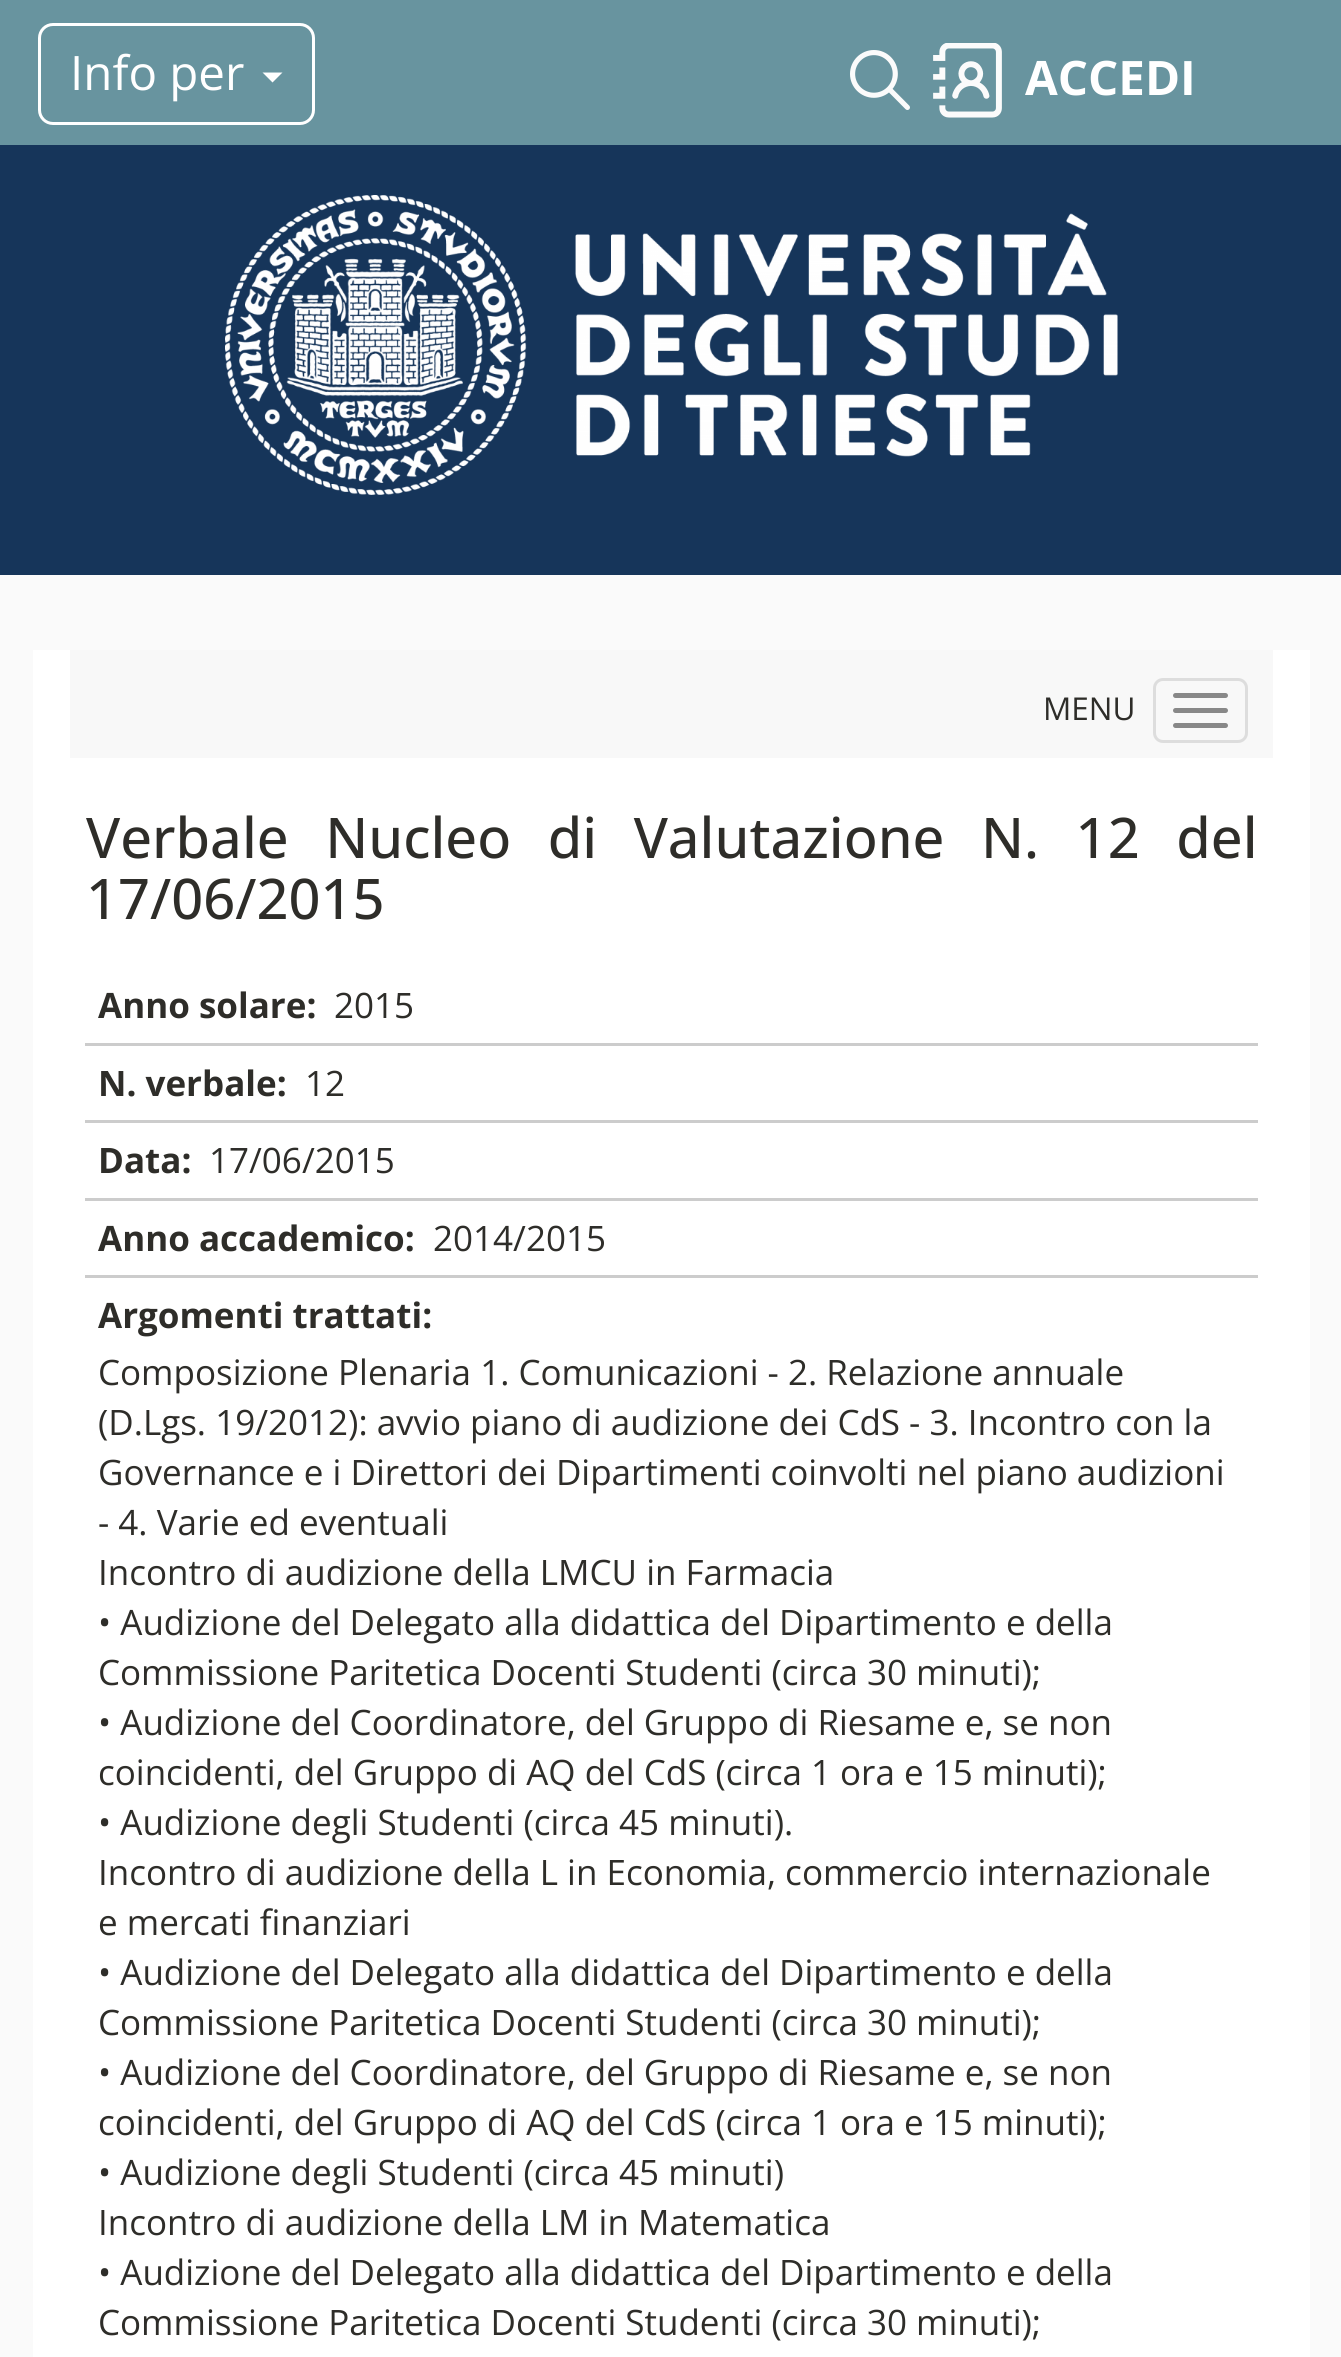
import math
import cairo



def draw_spaced(context, x, y, s, letter, word):
    context.move_to(x, y)
    for ch in s:
        context.show_text(ch)
        context.rel_move_to(letter + word * (ch == ' '), 0)


def rounded_rect(context, x, y, w, h, r):
    context.new_sub_path()
    for i, (u, v) in enumerate([(x + w - r, y + h - r), (x + r, y + h - r), (x + r, y + r), (x + w - r, y + r)]):
        context.arc(u, v, r, i * math.pi / 2, (i + 1) * math.pi / 2)
    context.close_path()


def draw_image(context, path, x, y, w, h):
    context.save()
    context.set_source_surface(cairo.ImageSurface.create_from_png(path), x, y)
    context.rectangle(x, y, w, h)
    context.fill()
    context.restore()


def draw(context):
    context.set_source_rgb(250 / 255, 250 / 255, 250 / 255)
    context.paint()
    context.set_source_rgb(104 / 255, 148 / 255, 159 / 255)
    context.rectangle(0, 0, 1341, 145)
    context.fill()
    rounded_rect(context, 39.5, 24.5, 274, 99, 13.5)
    context.set_source_rgb(1, 1, 1)
    context.set_line_width(3)
    context.stroke()
    context.new_path()
    context.move_to(262.5, 72.5)
    context.line_to(282.5, 72.5)
    context.line_to(272.5, 82.5)
    context.close_path()
    context.fill()
    draw_image(context, "images/1.png", 850, 50, 60, 60)
    draw_image(context, "images/2.png", 933, 43, 69, 75)
    context.set_source_rgb(22 / 255, 53 / 255, 90 / 255)
    context.rectangle(0, 145, 1341, 430)
    context.fill()
    draw_image(context, "images/3.png", 225, 195, 893, 300)
    context.set_source_rgb(1, 1, 1)
    context.rectangle(33, 650, 1277, 1707)
    context.fill()
    context.set_source_rgb(248 / 255, 248 / 255, 248 / 255)
    context.rectangle(70, 650, 1203, 108)
    context.fill()
    rounded_rect(context, 1154.5, 679.5, 92, 62, 8.5)
    context.set_source_rgb(221 / 255, 221 / 255, 221 / 255)
    context.stroke()
    context.set_source_rgb(136 / 255, 136 / 255, 136 / 255)
    rounded_rect(context, 1173, 693, 55, 5, 2.5)
    context.fill()
    rounded_rect(context, 1173, 708, 55, 5, 2.5)
    context.fill()
    rounded_rect(context, 1173, 723, 55, 5, 2.5)
    context.fill()
    context.set_source_rgb(204 / 255, 204 / 255, 204 / 255)
    context.rectangle(85, 1043, 1173, 3)
    context.fill()
    context.rectangle(85, 1120, 1173, 3)
    context.fill()
    context.rectangle(85, 1198, 1173, 3)
    context.fill()
    context.rectangle(85, 1275, 1173, 3)
    context.fill()
    context.select_font_face("Open Sans")
    context.set_font_size(47.5)
    context.set_source_rgb(1, 1, 1)
    context.move_to(70, 90)
    context.show_text("Info per")
    context.select_font_face("Open Sans", cairo.FontSlant.NORMAL, cairo.FontWeight.BOLD)
    context.move_to(1025, 95)
    context.show_text("ACCEDI")
    context.select_font_face("Open Sans")
    context.set_font_size(31.5)
    context.set_source_rgb(46 / 255, 45 / 255, 41 / 255)
    context.move_to(1043, 720)
    context.show_text("MENU")
    context.select_font_face("Open Sans Medium")
    context.set_font_size(56)
    draw_spaced(context, 86, 858, "Verbale Nucleo di Valutazione N. 12 del", 0, 22)
    context.move_to(86, 919)
    context.show_text("17/06/2015")
    context.select_font_face("Open Sans", cairo.FontSlant.NORMAL, cairo.FontWeight.BOLD)
    context.set_font_size(35)
    context.move_to(98, 1018)
    context.show_text("Anno solare:")
    context.select_font_face("Open Sans")
    context.move_to(334, 1018)
    context.show_text("2015")
    context.select_font_face("Open Sans", cairo.FontSlant.NORMAL, cairo.FontWeight.BOLD)
    context.move_to(98, 1096)
    context.show_text("N. verbale:")
    context.select_font_face("Open Sans")
    context.move_to(305, 1096)
    context.show_text("12")
    context.select_font_face("Open Sans", cairo.FontSlant.NORMAL, cairo.FontWeight.BOLD)
    context.move_to(98, 1173)
    context.show_text("Data:")
    context.select_font_face("Open Sans")
    context.move_to(209, 1173)
    context.show_text("17/06/2015")
    context.select_font_face("Open Sans", cairo.FontSlant.NORMAL, cairo.FontWeight.BOLD)
    context.move_to(98, 1251)
    context.show_text("Anno accademico:")
    context.select_font_face("Open Sans")
    context.move_to(433, 1251)
    context.show_text("2014/2015")
    context.select_font_face("Open Sans", cairo.FontSlant.NORMAL, cairo.FontWeight.BOLD)
    context.move_to(98, 1328)
    context.show_text("Argomenti trattati:")
    context.select_font_face("Open Sans")
    context.move_to(98, 1385)
    context.show_text("Composizione Plenaria 1. Comunicazioni - 2. Relazione annuale")
    context.move_to(98, 1435)
    context.show_text("(D.Lgs. 19/2012): avvio piano di audizione dei CdS - 3. Incontro con la")
    context.move_to(98, 1485)
    context.show_text("Governance e i Direttori dei Dipartimenti coinvolti nel piano audizioni")
    context.move_to(98, 1535)
    context.show_text("- 4. Varie ed eventuali")
    context.move_to(98, 1585)
    context.show_text("Incontro di audizione della LMCU in Farmacia")
    context.move_to(98, 1635)
    context.show_text("• Audizione del Delegato alla didattica del Dipartimento e della")
    context.move_to(98, 1685)
    context.show_text("Commissione Paritetica Docenti Studenti (circa 30 minuti);")
    context.move_to(98, 1735)
    context.show_text("• Audizione del Coordinatore, del Gruppo di Riesame e, se non")
    context.move_to(98, 1785)
    context.show_text("coincidenti, del Gruppo di AQ del CdS (circa 1 ora e 15 minuti);")
    context.move_to(98, 1835)
    context.show_text("• Audizione degli Studenti (circa 45 minuti).")
    context.move_to(98, 1885)
    context.show_text("Incontro di audizione della L in Economia, commercio internazionale")
    context.move_to(98, 1935)
    context.show_text("e mercati finanziari")
    context.move_to(98, 1985)
    context.show_text("• Audizione del Delegato alla didattica del Dipartimento e della")
    context.move_to(98, 2035)
    context.show_text("Commissione Paritetica Docenti Studenti (circa 30 minuti);")
    context.move_to(98, 2085)
    context.show_text("• Audizione del Coordinatore, del Gruppo di Riesame e, se non")
    context.move_to(98, 2135)
    context.show_text("coincidenti, del Gruppo di AQ del CdS (circa 1 ora e 15 minuti);")
    context.move_to(98, 2185)
    context.show_text("• Audizione degli Studenti (circa 45 minuti)")
    context.move_to(98, 2235)
    context.show_text("Incontro di audizione della LM in Matematica")
    context.move_to(98, 2285)
    context.show_text("• Audizione del Delegato alla didattica del Dipartimento e della")
    context.move_to(98, 2335)
    context.show_text("Commissione Paritetica Docenti Studenti (circa 30 minuti);")


surface = cairo.ImageSurface(cairo.Format.RGB24, 1341, 2357)
context = cairo.Context(surface)
options = cairo.FontOptions()
options.set_hint_metrics(cairo.HintMetrics.OFF)
options.set_hint_style(cairo.HintStyle.NONE)
context.set_font_options(options)
context.set_miter_limit(4)
draw(context)
surface.write_to_png("out.png")
